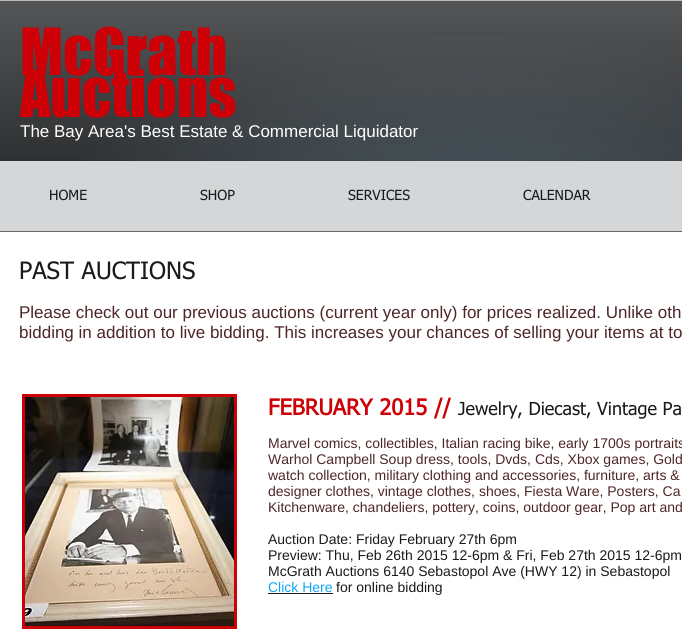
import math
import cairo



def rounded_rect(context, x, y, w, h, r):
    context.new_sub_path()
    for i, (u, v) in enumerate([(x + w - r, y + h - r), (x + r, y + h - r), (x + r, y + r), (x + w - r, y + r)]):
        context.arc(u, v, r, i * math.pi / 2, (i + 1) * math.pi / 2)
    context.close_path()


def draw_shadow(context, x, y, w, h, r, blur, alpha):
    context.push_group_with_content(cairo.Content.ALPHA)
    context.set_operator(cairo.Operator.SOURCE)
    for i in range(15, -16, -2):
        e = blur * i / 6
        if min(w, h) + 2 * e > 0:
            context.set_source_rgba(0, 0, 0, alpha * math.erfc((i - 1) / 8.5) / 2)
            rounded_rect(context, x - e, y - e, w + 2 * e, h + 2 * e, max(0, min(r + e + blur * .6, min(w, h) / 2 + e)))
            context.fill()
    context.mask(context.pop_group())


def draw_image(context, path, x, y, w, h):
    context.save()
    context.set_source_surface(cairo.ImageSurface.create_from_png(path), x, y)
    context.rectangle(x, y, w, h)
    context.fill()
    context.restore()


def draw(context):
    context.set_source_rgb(24 / 255, 26 / 255, 28 / 255)
    context.paint()
    draw_image(context, "images/1.png", 0, 1, 682, 160)
    context.set_source_rgb(187 / 255, 187 / 255, 188 / 255)
    context.rectangle(0, 0, 682, 1)
    context.fill()
    context.set_source_rgb(1, 1, 1)
    context.rectangle(0, 231, 682, 1)
    context.fill()
    draw_image(context, "images/2.png", 80, 37, 602, 124)
    context.set_source_rgb(0, 0, 0)
    draw_shadow(context, -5, 163, 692, 70, 0, 1.5, 0.7)
    context.set_source_rgb(212 / 255, 214 / 255, 215 / 255)
    context.rectangle(0, 161, 682, 70)
    context.fill()
    context.set_source_rgb(1, 1, 1)
    context.rectangle(0, 232, 682, 403)
    context.fill()
    context.set_source_rgb(204 / 255, 0, 6 / 255)
    context.rectangle(22, 394, 215, 235)
    context.fill()
    draw_image(context, "images/3.png", 25, 397, 209, 229)
    context.set_source_rgb(24 / 255, 26 / 255, 28 / 255)
    context.rectangle(268, 593, 65, 1)
    context.fill()
    context.select_font_face("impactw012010")
    context.set_font_size(60)
    context.set_source_rgb(204 / 255, 0, 6 / 255)
    context.move_to(20, 75)
    context.show_text("McGrath")
    context.move_to(20, 117)
    context.show_text("Auctions")
    context.select_font_face("Liberation Sans")
    context.set_font_size(17)
    context.set_source_rgb(1, 1, 1)
    context.move_to(20, 137)
    context.show_text("The Bay Area's Best Estate & Commercial Liquidator")
    context.select_font_face("tahoma")
    context.set_font_size(14)
    context.set_source_rgb(24 / 255, 26 / 255, 28 / 255)
    context.move_to(49, 200)
    context.show_text("HOME")
    context.move_to(200, 200)
    context.show_text("SHOP")
    context.move_to(348, 200)
    context.show_text("SERVICES")
    context.move_to(523, 200)
    context.show_text("CALENDAR")
    context.set_font_size(24)
    context.move_to(19, 279)
    context.show_text("PAST AUCTIONS")
    context.select_font_face("Liberation Sans")
    context.set_font_size(17)
    context.set_source_rgb(78 / 255, 38 / 255, 39 / 255)
    context.move_to(19, 318)
    context.show_text("Please check out our previous auctions (current year only) for prices realized. Unlike oth")
    context.move_to(19, 338)
    context.show_text("bidding in addition to live bidding. This increases your chances of selling your items at to")
    context.select_font_face("tahoma", cairo.FontSlant.NORMAL, cairo.FontWeight.BOLD)
    context.set_font_size(22)
    context.set_source_rgb(204 / 255, 0, 6 / 255)
    context.move_to(268, 415)
    context.show_text("FEBRUARY 2015 //")
    context.select_font_face("tahoma")
    context.set_font_size(18)
    context.set_source_rgb(24 / 255, 26 / 255, 28 / 255)
    context.move_to(458, 415)
    context.show_text("Jewelry, Diecast, Vintage Pa")
    context.select_font_face("Liberation Sans")
    context.set_font_size(14)
    context.set_source_rgb(78 / 255, 38 / 255, 39 / 255)
    context.move_to(268, 448)
    context.show_text("Marvel comics, collectibles, Italian racing bike, early 1700s portraits")
    context.move_to(268, 464)
    context.show_text("Warhol Campbell Soup dress, tools, Dvds, Cds, Xbox games, Gold")
    context.move_to(268, 480)
    context.show_text("watch collection, military clothing and accessories, furniture, arts &")
    context.move_to(268, 496)
    context.show_text("designer clothes, vintage clothes, shoes, Fiesta Ware, Posters, Ca")
    context.move_to(268, 512)
    context.show_text("Kitchenware, chandeliers, pottery, coins, outdoor gear, Pop art and")
    context.set_source_rgb(24 / 255, 26 / 255, 28 / 255)
    context.move_to(268, 544)
    context.show_text("Auction Date: Friday February 27th 6pm")
    context.move_to(268, 560)
    context.show_text("Preview: Thu, Feb 26th 2015 12-6pm & Fri, Feb 27th 2015 12-6pm")
    context.move_to(268, 576)
    context.show_text("McGrath Auctions 6140 Sebastopol Ave (HWY 12) in Sebastopol")
    context.set_source_rgb(15 / 255, 166 / 255, 247 / 255)
    context.move_to(268, 592)
    context.show_text("Click Here")
    context.set_source_rgb(24 / 255, 26 / 255, 28 / 255)
    context.move_to(336, 592)
    context.show_text("for online bidding")


surface = cairo.ImageSurface(cairo.Format.RGB24, 682, 635)
context = cairo.Context(surface)
options = cairo.FontOptions()
options.set_hint_metrics(cairo.HintMetrics.OFF)
options.set_hint_style(cairo.HintStyle.NONE)
context.set_font_options(options)
context.set_miter_limit(4)
draw(context)
surface.write_to_png("out.png")
